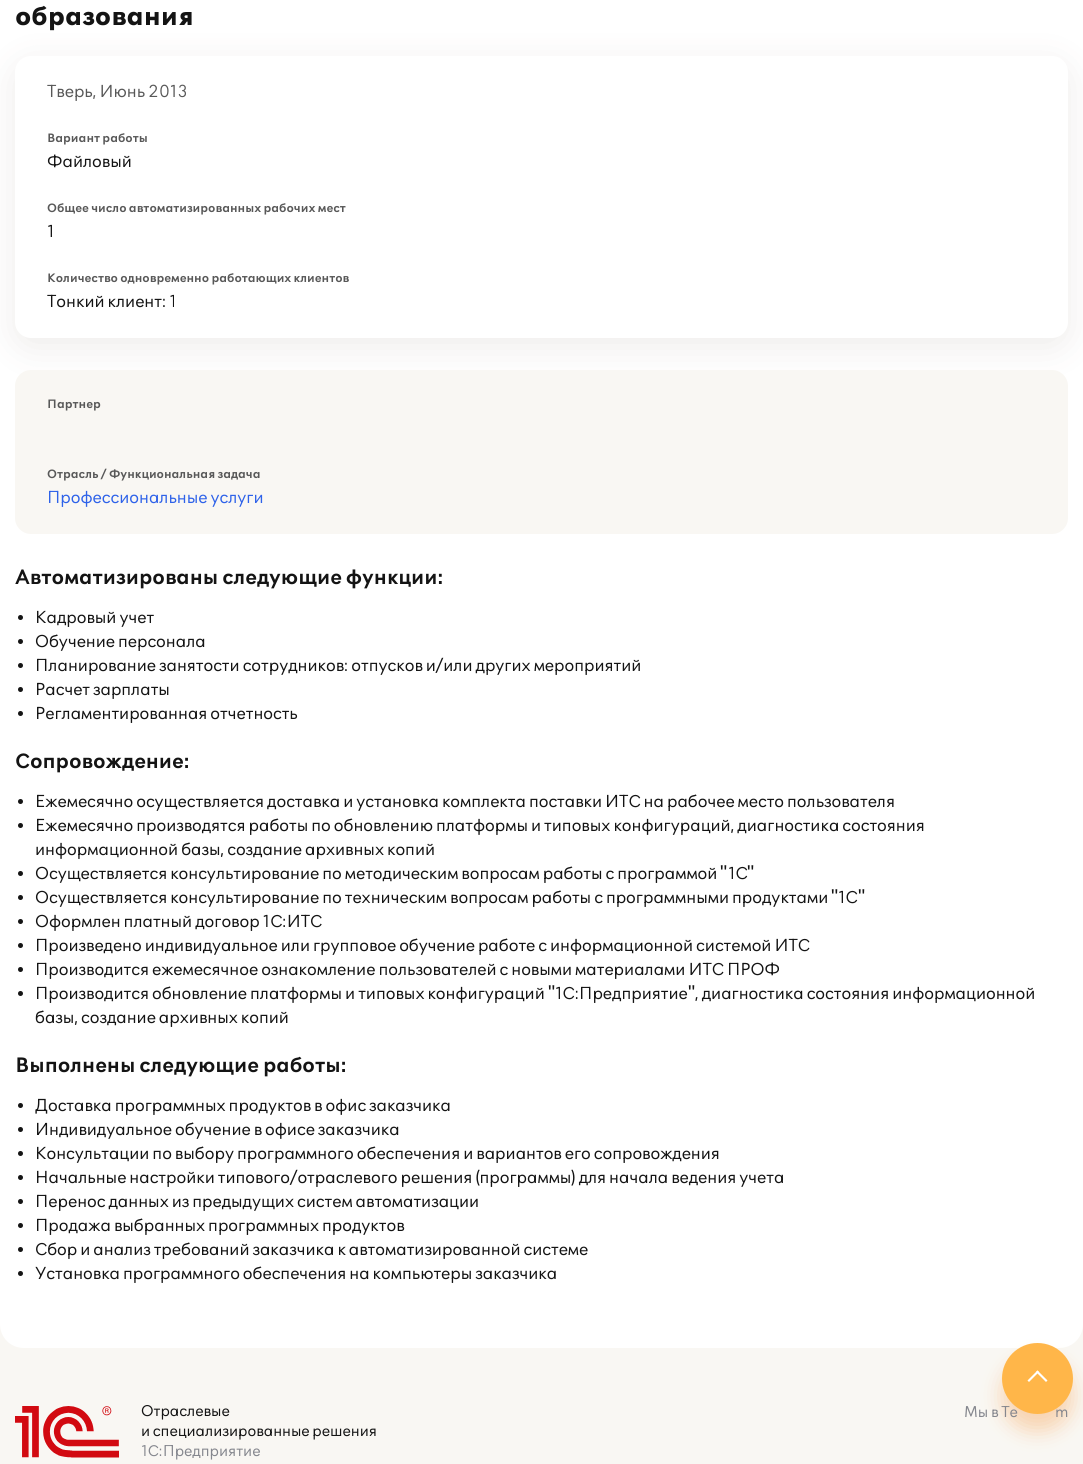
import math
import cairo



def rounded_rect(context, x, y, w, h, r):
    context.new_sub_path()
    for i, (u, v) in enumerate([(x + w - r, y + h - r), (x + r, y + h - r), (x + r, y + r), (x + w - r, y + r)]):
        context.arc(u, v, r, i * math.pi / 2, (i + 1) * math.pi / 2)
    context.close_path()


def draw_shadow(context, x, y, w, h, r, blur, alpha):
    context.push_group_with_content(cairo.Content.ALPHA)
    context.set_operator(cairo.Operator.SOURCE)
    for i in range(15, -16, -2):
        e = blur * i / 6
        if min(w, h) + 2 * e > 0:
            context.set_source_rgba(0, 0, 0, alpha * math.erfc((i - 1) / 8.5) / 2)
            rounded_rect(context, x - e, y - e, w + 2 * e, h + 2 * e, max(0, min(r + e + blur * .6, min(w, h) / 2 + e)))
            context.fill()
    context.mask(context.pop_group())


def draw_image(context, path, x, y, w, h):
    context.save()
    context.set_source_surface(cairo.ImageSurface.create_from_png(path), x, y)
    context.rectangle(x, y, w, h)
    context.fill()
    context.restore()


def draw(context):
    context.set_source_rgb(249 / 255, 247 / 255, 243 / 255)
    context.paint()
    context.set_source_rgb(1, 1, 1)
    context.new_path()
    context.move_to(0, -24)
    context.line_to(1083, -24)
    context.line_to(1083, 1324)
    context.curve_to(1083, 1337.5, 1072.5, 1348, 1059, 1348)
    context.line_to(24, 1348)
    context.curve_to(10.5, 1348, 0, 1337.5, 0, 1324)
    context.close_path()
    context.fill()
    context.set_source_rgb(85 / 255, 62 / 255, 45 / 255)
    draw_shadow(context, 15, 65, 1053, 282, 16, 17.5, 0.1)
    context.set_source_rgb(1, 1, 1)
    rounded_rect(context, 15, 56, 1053, 282, 16)
    context.fill()
    context.set_source_rgb(249 / 255, 247 / 255, 243 / 255)
    rounded_rect(context, 15, 370, 1053, 164, 16)
    context.fill()
    context.set_source_rgb(20 / 255, 20 / 255, 20 / 255)
    context.arc(20.5, 617.5, 2.5, 0, 2 * math.pi)
    context.fill()
    context.arc(20.5, 641.5, 2.5, 0, 2 * math.pi)
    context.fill()
    context.arc(20.5, 665.5, 2.5, 0, 2 * math.pi)
    context.fill()
    context.arc(20.5, 689.5, 2.5, 0, 2 * math.pi)
    context.fill()
    context.arc(20.5, 713.5, 2.5, 0, 2 * math.pi)
    context.fill()
    context.arc(20.5, 801.5, 2.5, 0, 2 * math.pi)
    context.fill()
    context.arc(20.5, 825.5, 2.5, 0, 2 * math.pi)
    context.fill()
    context.arc(20.5, 873.5, 2.5, 0, 2 * math.pi)
    context.fill()
    context.arc(20.5, 897.5, 2.5, 0, 2 * math.pi)
    context.fill()
    context.arc(20.5, 921.5, 2.5, 0, 2 * math.pi)
    context.fill()
    context.arc(20.5, 945.5, 2.5, 0, 2 * math.pi)
    context.fill()
    context.arc(20.5, 969.5, 2.5, 0, 2 * math.pi)
    context.fill()
    context.arc(20.5, 993.5, 2.5, 0, 2 * math.pi)
    context.fill()
    context.arc(20.5, 1105.5, 2.5, 0, 2 * math.pi)
    context.fill()
    context.arc(20.5, 1129.5, 2.5, 0, 2 * math.pi)
    context.fill()
    context.arc(20.5, 1153.5, 2.5, 0, 2 * math.pi)
    context.fill()
    context.arc(20.5, 1177.5, 2.5, 0, 2 * math.pi)
    context.fill()
    context.arc(20.5, 1201.5, 2.5, 0, 2 * math.pi)
    context.fill()
    context.arc(20.5, 1225.5, 2.5, 0, 2 * math.pi)
    context.fill()
    context.arc(20.5, 1249.5, 2.5, 0, 2 * math.pi)
    context.fill()
    context.arc(20.5, 1273.5, 2.5, 0, 2 * math.pi)
    context.fill()
    context.set_source_rgb(245 / 255, 131 / 255, 25 / 255)
    draw_shadow(context, 1002, 1360, 71, 71, 35.5, 10, 0.3)
    draw_image(context, "images/1.png", 15, 1406, 104, 52)
    context.select_font_face("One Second", cairo.FontSlant.NORMAL, cairo.FontWeight.BOLD)
    context.set_font_size(30)
    context.set_source_rgb(20 / 255, 20 / 255, 20 / 255)
    context.move_to(15, 25)
    context.show_text("образования")
    context.select_font_face("One Second")
    context.set_font_size(20)
    context.set_source_rgb(88 / 255, 88 / 255, 88 / 255)
    context.move_to(47, 97)
    context.show_text("Тверь, Июнь 2013")
    context.select_font_face("One Second SemiBold")
    context.set_font_size(14)
    context.move_to(47, 142)
    context.show_text("Вариант работы")
    context.select_font_face("One Second")
    context.set_font_size(20)
    context.set_source_rgb(20 / 255, 20 / 255, 20 / 255)
    context.move_to(47, 167)
    context.show_text("Файловый")
    context.select_font_face("One Second SemiBold")
    context.set_font_size(14)
    context.set_source_rgb(88 / 255, 88 / 255, 88 / 255)
    context.move_to(47, 212)
    context.show_text("Общее число автоматизированных рабочих мест")
    context.select_font_face("One Second")
    context.set_font_size(20)
    context.set_source_rgb(20 / 255, 20 / 255, 20 / 255)
    context.move_to(47, 237)
    context.show_text("1")
    context.select_font_face("One Second SemiBold")
    context.set_font_size(14)
    context.set_source_rgb(88 / 255, 88 / 255, 88 / 255)
    context.move_to(47, 282)
    context.show_text("Количество одновременно работающих клиентов")
    context.select_font_face("One Second")
    context.set_font_size(20)
    context.set_source_rgb(20 / 255, 20 / 255, 20 / 255)
    context.move_to(47, 307)
    context.show_text("Тонкий клиент: 1")
    context.select_font_face("One Second SemiBold")
    context.set_font_size(14)
    context.set_source_rgb(88 / 255, 88 / 255, 88 / 255)
    context.move_to(47, 408)
    context.show_text("Партнер")
    context.move_to(47, 478)
    context.show_text("Отрасль / Функциональная задача")
    context.select_font_face("One Second")
    context.set_font_size(20)
    context.set_source_rgb(46 / 255, 98 / 255, 233 / 255)
    context.move_to(47, 503)
    context.show_text("Профессиональные услуги")
    context.select_font_face("One Second SemiBold")
    context.set_font_size(24)
    context.set_source_rgb(20 / 255, 20 / 255, 20 / 255)
    context.move_to(15, 584)
    context.show_text("Автоматизированы следующие функции:")
    context.select_font_face("One Second")
    context.set_font_size(20)
    context.move_to(35, 623)
    context.show_text("Кадровый учет")
    context.move_to(35, 647)
    context.show_text("Обучение персонала")
    context.move_to(35, 671)
    context.show_text("Планирование занятости сотрудников: отпусков и/или других мероприятий")
    context.move_to(35, 695)
    context.show_text("Расчет зарплаты")
    context.move_to(35, 719)
    context.show_text("Регламентированная отчетность")
    context.select_font_face("One Second SemiBold")
    context.set_font_size(24)
    context.move_to(15, 768)
    context.show_text("Сопровождение:")
    context.select_font_face("One Second")
    context.set_font_size(20)
    context.move_to(35, 807)
    context.show_text("Ежемесячно осуществляется доставка и установка комплекта поставки ИТС на рабочее место пользователя")
    context.move_to(35, 831)
    context.show_text("Ежемесячно производятся работы по обновлению платформы и типовых конфигураций, диагностика состояния")
    context.move_to(35, 855)
    context.show_text("информационной базы, создание архивных копий")
    context.move_to(35, 879)
    context.show_text("Осуществляется консультирование по методическим вопросам работы с программой")
    context.select_font_face("Liberation Sans")
    context.move_to(720, 879)
    context.show_text("\"")
    context.select_font_face("One Second")
    context.move_to(728, 879)
    context.show_text("1С")
    context.select_font_face("Liberation Sans")
    context.move_to(747, 879)
    context.show_text("\"")
    context.select_font_face("One Second")
    context.move_to(35, 903)
    context.show_text("Осуществляется консультирование по техническим вопросам работы с программными продуктами")
    context.select_font_face("Liberation Sans")
    context.move_to(831, 903)
    context.show_text("\"")
    context.select_font_face("One Second")
    context.move_to(838, 903)
    context.show_text("1С")
    context.select_font_face("Liberation Sans")
    context.move_to(858, 903)
    context.show_text("\"")
    context.select_font_face("One Second")
    context.move_to(35, 927)
    context.show_text("Оформлен платный договор 1С:ИТС")
    context.move_to(35, 951)
    context.show_text("Произведено индивидуальное или групповое обучение работе с информационной системой ИТС")
    context.move_to(35, 975)
    context.show_text("Производится ежемесячное ознакомление пользователей с новыми материалами ИТС ПРОФ")
    context.move_to(35, 999)
    context.show_text("Производится обновление платформы и типовых конфигураций")
    context.select_font_face("Liberation Sans")
    context.move_to(548, 999)
    context.show_text("\"")
    context.select_font_face("One Second")
    context.move_to(555, 999)
    context.show_text("1С:Предприятие")
    context.select_font_face("Liberation Sans")
    context.move_to(688, 999)
    context.show_text("\"")
    context.select_font_face("One Second")
    context.move_to(695, 999)
    context.show_text(", диагностика состояния информационной")
    context.move_to(35, 1023)
    context.show_text("базы, создание архивных копий")
    context.select_font_face("One Second SemiBold")
    context.set_font_size(24)
    context.move_to(15, 1072)
    context.show_text("Выполнены следующие работы:")
    context.select_font_face("One Second")
    context.set_font_size(20)
    context.move_to(35, 1111)
    context.show_text("Доставка программных продуктов в офис заказчика")
    context.move_to(35, 1135)
    context.show_text("Индивидуальное обучение в офисе заказчика")
    context.move_to(35, 1159)
    context.show_text("Консультации по выбору программного обеспечения и вариантов его сопровождения")
    context.move_to(35, 1183)
    context.show_text("Начальные настройки типового/отраслевого решения (программы) для начала ведения учета")
    context.move_to(35, 1207)
    context.show_text("Перенос данных из предыдущих систем автоматизации")
    context.move_to(35, 1231)
    context.show_text("Продажа выбранных программных продуктов")
    context.move_to(35, 1255)
    context.show_text("Сбор и анализ требований заказчика к автоматизированной системе")
    context.move_to(35, 1279)
    context.show_text("Установка программного обеспечения на компьютеры заказчика")
    context.set_font_size(18)
    context.move_to(141, 1416)
    context.show_text("Отраслевые")
    context.move_to(141, 1436)
    context.show_text("и специализированные решения")
    context.set_source_rgb(133 / 255, 135 / 255, 142 / 255)
    context.move_to(141, 1456)
    context.show_text("1С:Предприятие")
    context.move_to(964, 1417)
    context.show_text("Мы в Te")
    context.move_to(1055, 1417)
    context.show_text("m")
    context.set_source_rgb(1, 182 / 255, 73 / 255)
    context.new_path()
    context.arc(1037.5, 1378.5, 35.5, 0, 2 * math.pi)
    context.fill()
    context.set_source_rgb(1, 1, 1)
    context.new_path()
    context.move_to(1029, 1382)
    context.line_to(1027.5, 1380.5)
    context.line_to(1037.5, 1370.5)
    context.line_to(1039, 1372)
    context.close_path()
    context.fill()
    context.new_path()
    context.move_to(1046, 1382)
    context.line_to(1036, 1372)
    context.line_to(1037.5, 1370.5)
    context.line_to(1047.5, 1380.5)
    context.close_path()
    context.fill()


surface = cairo.ImageSurface(cairo.Format.RGB24, 1083, 1464)
context = cairo.Context(surface)
options = cairo.FontOptions()
options.set_hint_metrics(cairo.HintMetrics.OFF)
options.set_hint_style(cairo.HintStyle.NONE)
context.set_font_options(options)
context.set_miter_limit(4)
draw(context)
surface.write_to_png("out.png")
